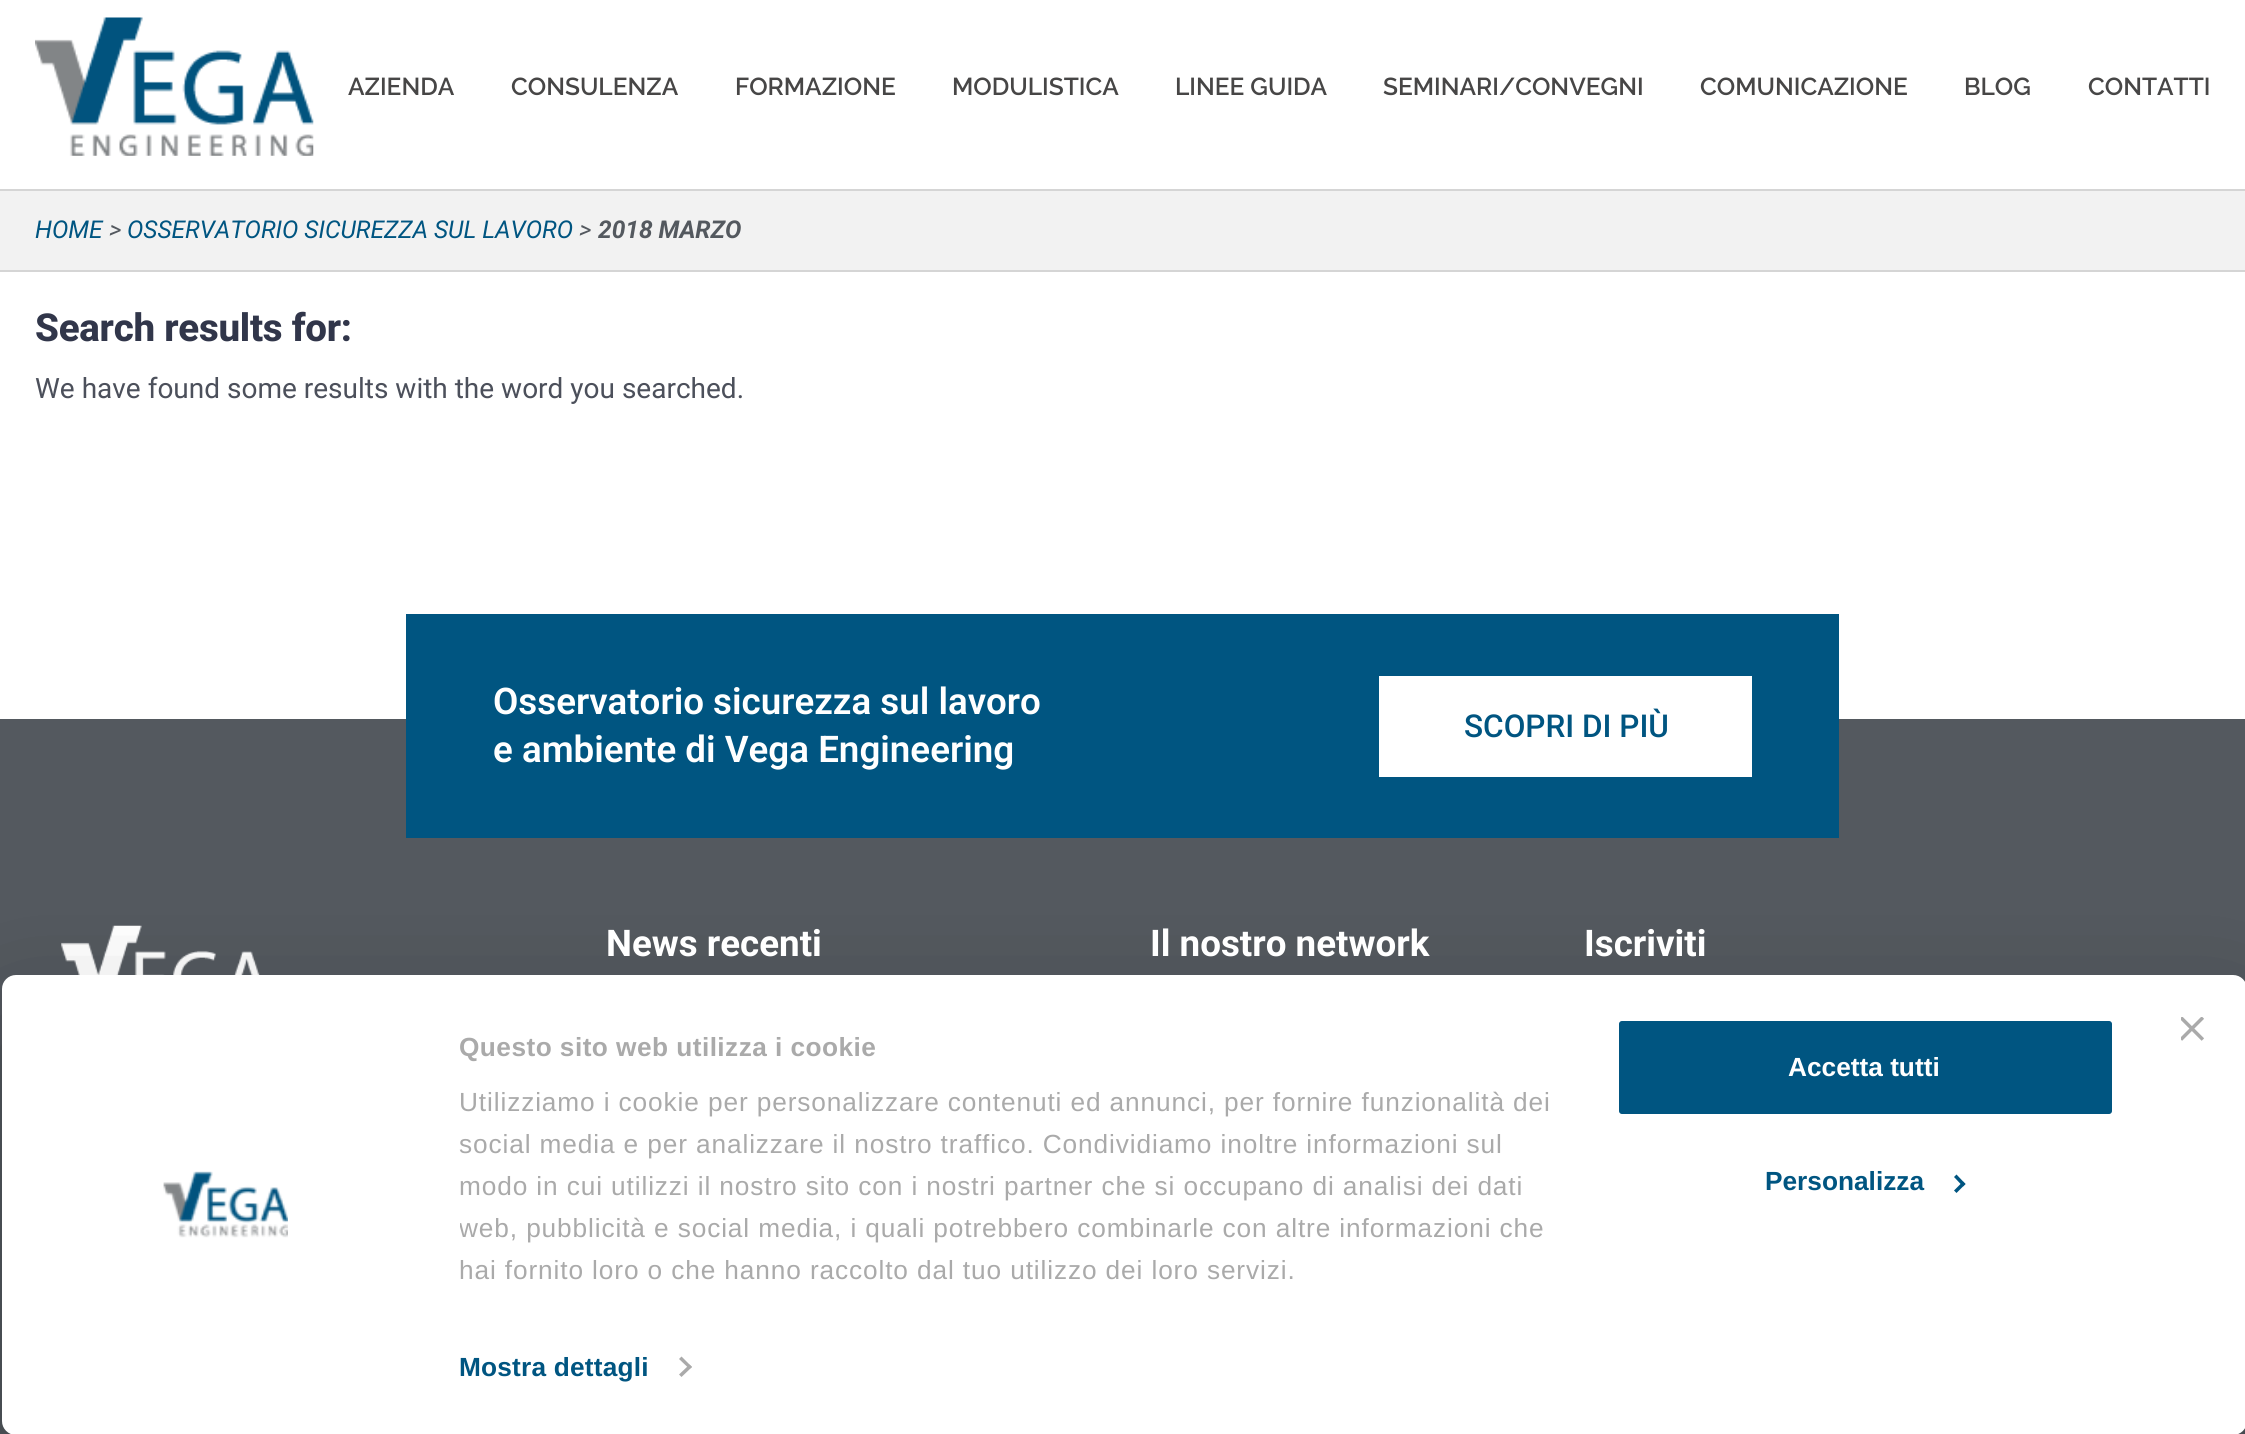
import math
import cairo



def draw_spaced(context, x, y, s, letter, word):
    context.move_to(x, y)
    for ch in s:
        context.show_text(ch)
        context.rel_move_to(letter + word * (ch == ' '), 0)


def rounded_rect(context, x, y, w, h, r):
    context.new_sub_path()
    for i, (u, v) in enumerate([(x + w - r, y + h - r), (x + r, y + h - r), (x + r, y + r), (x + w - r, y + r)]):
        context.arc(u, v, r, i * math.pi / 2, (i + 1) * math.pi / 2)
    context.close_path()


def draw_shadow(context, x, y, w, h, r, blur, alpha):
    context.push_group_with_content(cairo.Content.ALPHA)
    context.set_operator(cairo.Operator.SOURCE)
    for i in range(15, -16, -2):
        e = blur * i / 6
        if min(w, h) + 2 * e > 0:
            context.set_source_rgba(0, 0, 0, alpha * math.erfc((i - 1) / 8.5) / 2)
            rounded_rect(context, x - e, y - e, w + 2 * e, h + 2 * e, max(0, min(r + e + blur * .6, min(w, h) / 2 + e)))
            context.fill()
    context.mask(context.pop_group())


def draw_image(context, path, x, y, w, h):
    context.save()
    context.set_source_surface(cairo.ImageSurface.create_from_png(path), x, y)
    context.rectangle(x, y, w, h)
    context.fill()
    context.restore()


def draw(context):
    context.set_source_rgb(1, 1, 1)
    context.paint()
    context.set_source_rgb(213 / 255, 213 / 255, 213 / 255)
    context.rectangle(0, 189, 2245, 2)
    context.fill()
    draw_image(context, "images/1.png", 35, 17, 279, 139)
    context.set_source_rgb(242 / 255, 242 / 255, 242 / 255)
    context.rectangle(0, 191, 2245, 79)
    context.fill()
    context.set_source_rgb(213 / 255, 213 / 255, 213 / 255)
    context.rectangle(0, 270, 2245, 2)
    context.fill()
    context.set_source_rgb(84 / 255, 89 / 255, 95 / 255)
    context.rectangle(0, 719, 2245, 715)
    context.fill()
    context.set_source_rgb(0, 85 / 255, 129 / 255)
    context.rectangle(406, 614, 1433, 224)
    context.fill()
    context.set_source_rgb(1, 1, 1)
    context.rectangle(1379, 676, 373, 101)
    context.fill()
    draw_image(context, "images/2.png", 61, 925, 199, 50)
    context.save()
    context.set_fill_rule(cairo.FillRule.EVEN_ODD)
    context.new_path()
    context.move_to(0, 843)
    context.line_to(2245, 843)
    context.line_to(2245, 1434)
    context.line_to(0, 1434)
    context.close_path()
    context.move_to(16, 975)
    context.line_to(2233, 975)
    context.curve_to(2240.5, 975, 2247, 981.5, 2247, 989)
    context.line_to(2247, 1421)
    context.curve_to(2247, 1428.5, 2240.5, 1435, 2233, 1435)
    context.line_to(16, 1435)
    context.curve_to(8.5, 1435, 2, 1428.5, 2, 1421)
    context.line_to(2, 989)
    context.curve_to(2, 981.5, 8.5, 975, 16, 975)
    context.close_path()
    context.clip()
    context.set_source_rgb(0, 0, 0)
    draw_shadow(context, 2, 1027, 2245, 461, 14, 61, 0.3)
    context.restore()
    rounded_rect(context, 2, 975, 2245, 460, 14)
    context.fill()
    draw_image(context, "images/3.png", 2181, 1017, 23, 24)
    context.set_source_rgb(170 / 255, 170 / 255, 170 / 255)
    context.new_path()
    context.move_to(681.5, 1356.5)
    context.line_to(692, 1367)
    context.line_to(689.5, 1369)
    context.line_to(679, 1359)
    context.close_path()
    context.fill()
    context.new_path()
    context.move_to(689.5, 1364.5)
    context.line_to(692, 1367)
    context.line_to(681.5, 1377)
    context.line_to(679, 1374.5)
    context.close_path()
    context.fill()
    context.set_source_rgb(0, 85 / 255, 129 / 255)
    rounded_rect(context, 1617, 1019, 497, 97, 5)
    context.fill_preserve()
    context.set_source_rgb(1, 1, 1)
    context.set_line_width(4)
    context.stroke()
    context.set_source_rgb(0, 85 / 255, 129 / 255)
    context.new_path()
    context.move_to(1956.5, 1174.5)
    context.line_to(1965.5, 1184)
    context.line_to(1963, 1186.5)
    context.line_to(1954, 1177)
    context.close_path()
    context.fill()
    context.new_path()
    context.move_to(1963, 1181.5)
    context.line_to(1965.5, 1184)
    context.line_to(1956.5, 1193)
    context.line_to(1954, 1190.5)
    context.close_path()
    context.fill()
    draw_image(context, "images/4.png", 163, 1171, 125, 67)
    context.select_font_face("Raleway SemiBold")
    context.set_font_size(24.5)
    context.set_source_rgb(71 / 255, 70 / 255, 70 / 255)
    context.move_to(348, 95)
    context.show_text("AZIENDA")
    context.move_to(511, 95)
    context.show_text("CONSULENZA")
    context.move_to(735, 95)
    context.show_text("FORMAZIONE")
    context.move_to(952, 95)
    context.show_text("MODULISTICA")
    context.move_to(1175, 95)
    context.show_text("LINEE GUIDA")
    context.move_to(1383, 95)
    context.show_text("SEMINARI/CONVEGNI")
    context.move_to(1700, 95)
    context.show_text("COMUNICAZIONE")
    context.move_to(1964, 95)
    context.show_text("BLOG")
    context.move_to(2088, 95)
    context.show_text("CONTATTI")
    context.select_font_face("Roboto", cairo.FontSlant.ITALIC)
    context.set_source_rgb(0, 85 / 255, 129 / 255)
    context.move_to(35, 238)
    context.show_text("HOME")
    context.set_source_rgb(84 / 255, 89 / 255, 95 / 255)
    context.move_to(109, 238)
    context.show_text(">")
    context.set_source_rgb(0, 85 / 255, 129 / 255)
    context.move_to(127, 238)
    context.show_text("OSSERVATORIO SICUREZZA SUL LAVORO")
    context.set_source_rgb(84 / 255, 89 / 255, 95 / 255)
    context.move_to(579, 238)
    context.show_text(">")
    context.select_font_face("Roboto", cairo.FontSlant.ITALIC, cairo.FontWeight.BOLD)
    context.move_to(598, 238)
    context.show_text("2018 MARZO")
    context.select_font_face("Roboto ExtraBold")
    context.set_font_size(38.5)
    context.set_source_rgb(49 / 255, 54 / 255, 74 / 255)
    draw_spaced(context, 35, 341, "Search results for:", -0.25, 0)
    context.select_font_face("Roboto")
    context.set_font_size(28)
    context.set_source_rgb(76 / 255, 80 / 255, 91 / 255)
    context.move_to(35, 398)
    context.show_text("We have found some results with the word you searched.")
    context.select_font_face("Roboto SemiBold")
    context.set_font_size(36.75)
    context.set_source_rgb(1, 1, 1)
    context.move_to(493, 714)
    context.show_text("Osservatorio sicurezza sul lavoro")
    context.move_to(493, 762)
    context.show_text("e ambiente di Vega Engineering")
    context.select_font_face("Roboto Medium")
    context.set_font_size(31.5)
    context.set_source_rgb(0, 85 / 255, 129 / 255)
    context.move_to(1464, 737)
    context.show_text("SCOPRI DI PIÙ")
    context.select_font_face("Roboto", cairo.FontSlant.NORMAL, cairo.FontWeight.BOLD)
    context.set_font_size(36.75)
    context.set_source_rgb(1, 1, 1)
    context.move_to(606, 956)
    context.show_text("News recenti")
    context.move_to(1150, 956)
    context.show_text("Il nostro network")
    context.move_to(1584, 956)
    context.show_text("Iscriviti")
    context.save()
    context.rectangle(460, 1027, 1145, 265)
    context.clip()
    context.select_font_face("Liberation Sans", cairo.FontSlant.NORMAL, cairo.FontWeight.BOLD)
    context.set_font_size(26.25)
    context.set_source_rgb(170 / 255, 170 / 255, 170 / 255)
    draw_spaced(context, 459, 1056, "Questo sito web utilizza i cookie", 0.45, 0)
    context.restore()
    context.select_font_face("Liberation Sans")
    context.set_font_size(26.25)
    context.set_source_rgb(170 / 255, 170 / 255, 170 / 255)
    draw_spaced(context, 459, 1111, "Utilizziamo i cookie per personalizzare contenuti ed annunci, per fornire funzionalità dei", 0.88, 0)
    draw_spaced(context, 459, 1153, "social media e per analizzare il nostro traffico. Condividiamo inoltre informazioni sul", 0.88, 0)
    draw_spaced(context, 459, 1195, "modo in cui utilizzi il nostro sito con i nostri partner che si occupano di analisi dei dati", 0.88, 0)
    context.save()
    context.rectangle(460, 1027, 1145, 265)
    context.clip()
    draw_spaced(context, 459, 1237, "web, pubblicità e social media, i quali potrebbero combinarle con altre informazioni che", 0.88, 0)
    context.restore()
    draw_spaced(context, 459, 1279, "hai fornito loro o che hanno raccolto dal tuo utilizzo dei loro servizi.", 0.88, 0)
    context.select_font_face("Liberation Sans", cairo.FontSlant.NORMAL, cairo.FontWeight.BOLD)
    context.set_source_rgb(0, 85 / 255, 129 / 255)
    draw_spaced(context, 459, 1376, "Mostra dettagli", 0.2, 0)
    context.set_source_rgb(1, 1, 1)
    context.move_to(1788, 1076)
    context.show_text("Accetta tutti")
    context.set_source_rgb(0, 85 / 255, 129 / 255)
    context.move_to(1765, 1190)
    context.show_text("Personalizza")


surface = cairo.ImageSurface(cairo.Format.RGB24, 2245, 1434)
context = cairo.Context(surface)
options = cairo.FontOptions()
options.set_hint_metrics(cairo.HintMetrics.OFF)
options.set_hint_style(cairo.HintStyle.NONE)
context.set_font_options(options)
context.set_miter_limit(4)
draw(context)
surface.write_to_png("out.png")
